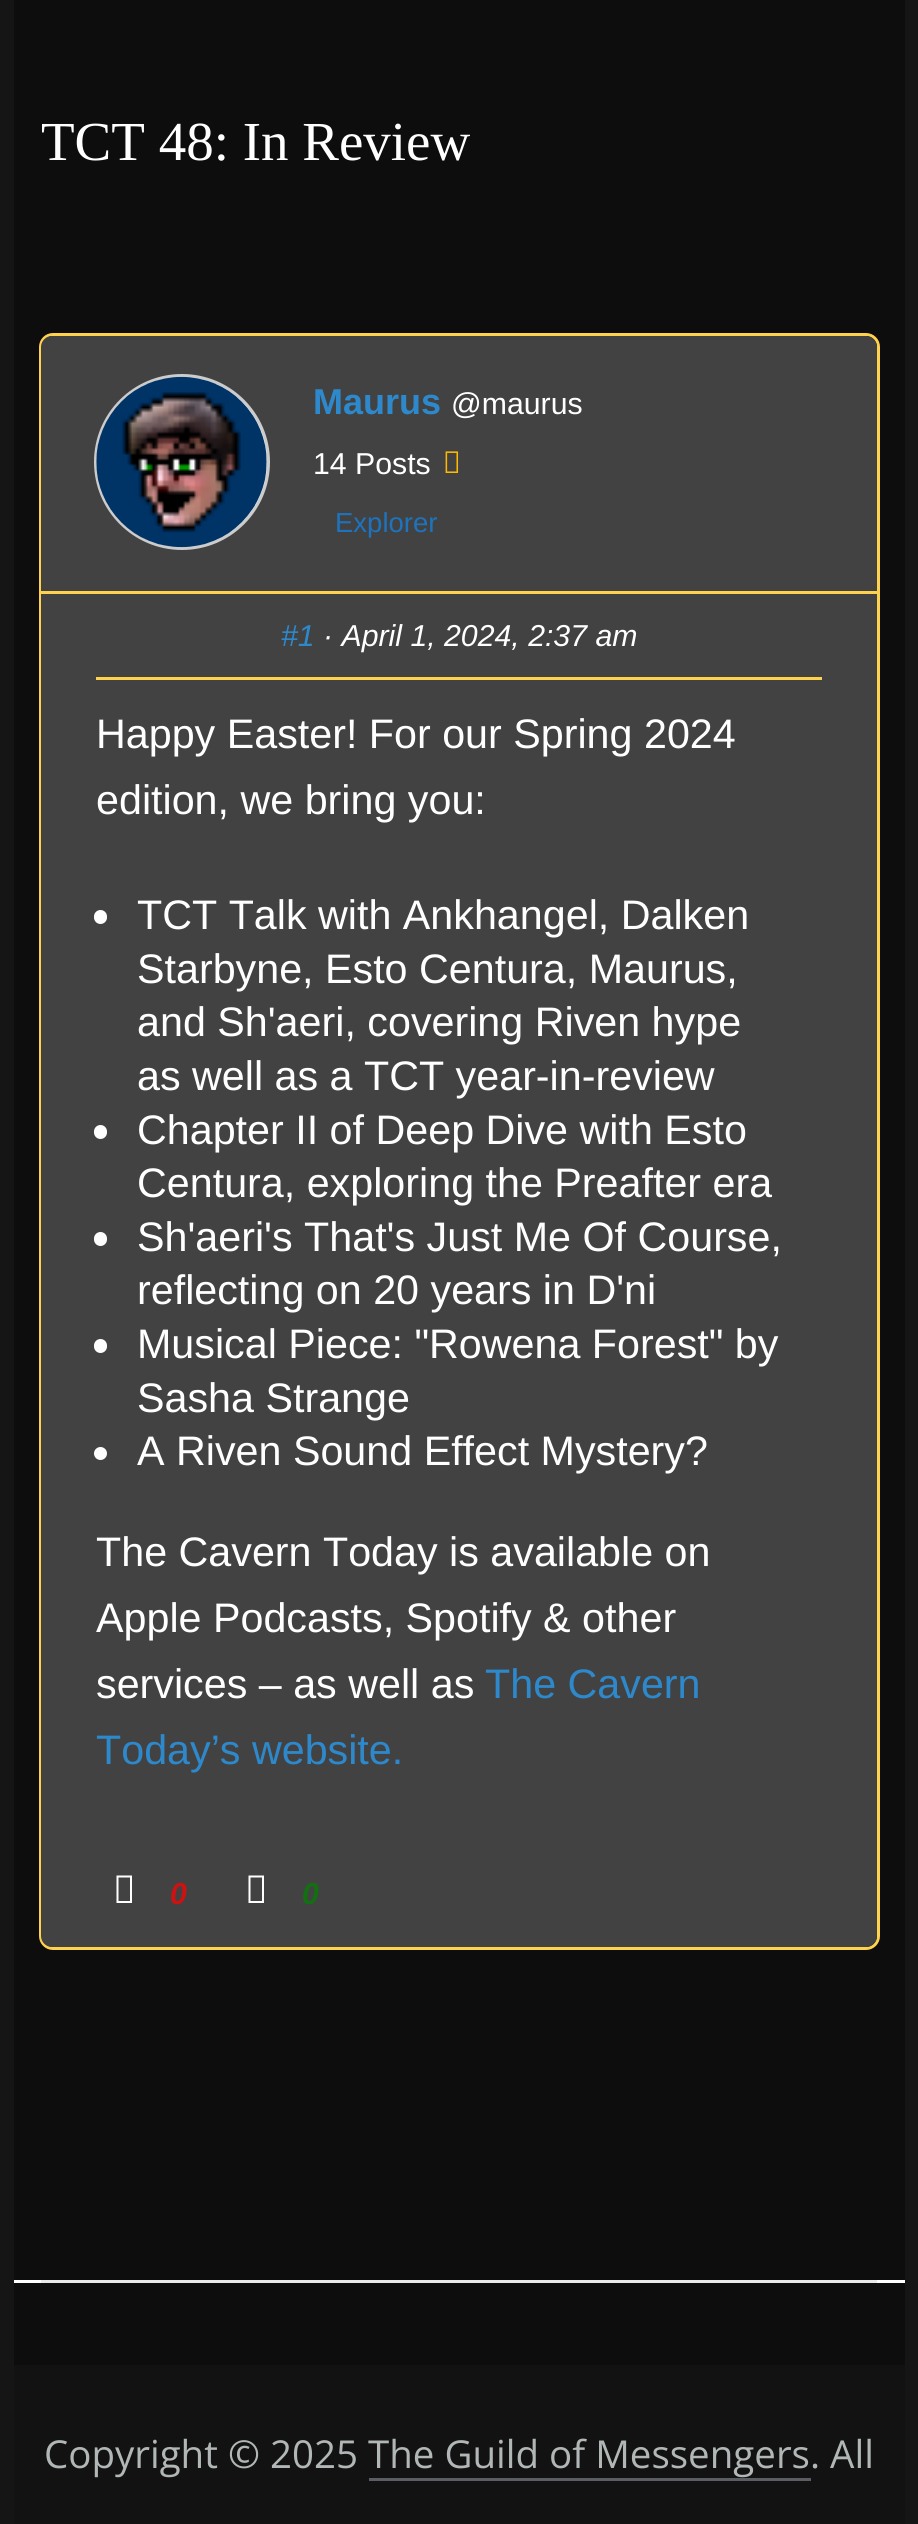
import math
import cairo



def rounded_rect(context, x, y, w, h, r):
    context.new_sub_path()
    for i, (u, v) in enumerate([(x + w - r, y + h - r), (x + r, y + h - r), (x + r, y + r), (x + w - r, y + r)]):
        context.arc(u, v, r, i * math.pi / 2, (i + 1) * math.pi / 2)
    context.close_path()


def draw_image(context, path, x, y, w, h):
    context.save()
    context.set_source_surface(cairo.ImageSurface.create_from_png(path), x, y)
    context.rectangle(x, y, w, h)
    context.fill()
    context.restore()


def draw(context):
    context.set_source_rgb(21 / 255, 21 / 255, 21 / 255)
    context.paint()
    context.set_source_rgb(13 / 255, 13 / 255, 13 / 255)
    context.rectangle(14, 0, 891, 2365)
    context.fill()
    rounded_rect(context, 40.5, 334.5, 838, 1614, 12.5)
    context.set_source_rgb(1, 210 / 255, 77 / 255)
    context.set_line_width(3)
    context.stroke()
    context.set_source_rgb(66 / 255, 66 / 255, 66 / 255)
    context.new_path()
    context.move_to(52, 336)
    context.line_to(866, 336)
    context.curve_to(872, 336, 877, 341, 877, 347)
    context.line_to(877, 594)
    context.line_to(41, 594)
    context.line_to(41, 347)
    context.curve_to(41, 341, 46, 336, 52, 336)
    context.close_path()
    context.fill()
    context.set_source_rgb(1, 210 / 255, 77 / 255)
    context.rectangle(41, 591, 836, 3)
    context.fill()
    context.set_source_rgb(1, 1, 1)
    context.arc(182, 462, 86.5, 0, 2 * math.pi)
    context.fill_preserve()
    context.set_source_rgb(204 / 255, 204 / 255, 204 / 255)
    context.stroke()
    draw_image(context, "images/1.png", 96, 376, 171, 172)
    draw_image(context, "images/2.png", 445, 451, 14, 22)
    context.set_source_rgb(66 / 255, 66 / 255, 66 / 255)
    context.new_path()
    context.move_to(41, 594)
    context.line_to(877, 594)
    context.line_to(877, 1936)
    context.curve_to(877, 1942, 872, 1947, 866, 1947)
    context.line_to(52, 1947)
    context.curve_to(46, 1947, 41, 1942, 41, 1936)
    context.close_path()
    context.fill()
    context.set_source_rgb(1, 210 / 255, 77 / 255)
    context.rectangle(96, 677, 726, 3)
    context.fill()
    context.set_source_rgb(1, 1, 1)
    rounded_rect(context, 94, 910, 13, 14, 6.5)
    context.fill()
    rounded_rect(context, 94, 1125, 13, 14, 6.5)
    context.fill()
    rounded_rect(context, 94, 1232, 13, 14, 6.5)
    context.fill()
    rounded_rect(context, 94, 1339, 13, 14, 6.5)
    context.fill()
    context.arc(100.5, 1453.5, 6.5, 0, 2 * math.pi)
    context.fill()
    context.new_path()
    context.move_to(116.5, 1903)
    context.line_to(116.5, 1875.5)
    context.line_to(132, 1875.5)
    context.line_to(132, 1903)
    context.close_path()
    context.move_to(118.5, 1901)
    context.line_to(130, 1901)
    context.line_to(130, 1877.5)
    context.line_to(118.5, 1877.5)
    context.close_path()
    context.fill()
    context.new_path()
    context.move_to(248.5, 1903)
    context.line_to(248.5, 1875.5)
    context.line_to(264, 1875.5)
    context.line_to(264, 1903)
    context.close_path()
    context.move_to(250.5, 1901)
    context.line_to(262, 1901)
    context.line_to(262, 1877.5)
    context.line_to(250.5, 1877.5)
    context.close_path()
    context.fill()
    context.rectangle(14, 2280, 891, 3)
    context.fill()
    context.set_source_rgb(234 / 255, 234 / 255, 234 / 255)
    context.rectangle(41, 2280, 836, 3)
    context.fill()
    context.set_source_rgb(18 / 255, 18 / 255, 18 / 255)
    context.rectangle(14, 2365, 891, 159)
    context.fill()
    context.set_source_rgb(90 / 255, 93 / 255, 98 / 255)
    context.rectangle(369, 2478, 442, 3)
    context.fill()
    context.select_font_face("Liberation Serif")
    context.set_font_size(55)
    context.set_source_rgb(1, 1, 1)
    context.move_to(41, 160)
    context.show_text("TCT 48: In Review")
    context.select_font_face("Liberation Sans", cairo.FontSlant.NORMAL, cairo.FontWeight.BOLD)
    context.set_font_size(36)
    context.set_source_rgb(45 / 255, 137 / 255, 204 / 255)
    context.move_to(313, 414)
    context.show_text("Maurus")
    context.select_font_face("Liberation Sans")
    context.set_font_size(30.25)
    context.set_source_rgb(1, 1, 1)
    context.move_to(451, 414)
    context.show_text("@maurus")
    context.move_to(313, 474)
    context.show_text("14 Posts")
    context.set_font_size(27.5)
    context.set_source_rgb(30 / 255, 115 / 255, 190 / 255)
    context.move_to(335, 532)
    context.show_text("Explorer")
    context.select_font_face("Liberation Sans", cairo.FontSlant.ITALIC)
    context.set_font_size(30.25)
    context.set_source_rgb(45 / 255, 137 / 255, 204 / 255)
    context.move_to(281, 646)
    context.show_text("#1")
    context.set_source_rgb(1, 1, 1)
    context.move_to(323, 646)
    context.show_text("· April 1, 2024, 2:37 am")
    context.select_font_face("Liberation Sans")
    context.set_font_size(41.25)
    context.move_to(96, 748)
    context.show_text("Happy Easter! For our Spring 2024")
    context.move_to(96, 814)
    context.show_text("edition, we bring you:")
    context.move_to(137, 929)
    context.show_text("TCT Talk with Ankhangel, Dalken")
    context.move_to(137, 983)
    context.show_text("Starbyne, Esto Centura, Maurus,")
    context.move_to(137, 1036)
    context.show_text("and Sh'aeri, covering Riven hype")
    context.move_to(137, 1090)
    context.show_text("as well as a TCT year-in-review")
    context.move_to(137, 1144)
    context.show_text("Chapter II of Deep Dive with Esto")
    context.move_to(137, 1197)
    context.show_text("Centura, exploring the Preafter era")
    context.move_to(137, 1251)
    context.show_text("Sh'aeri's That's Just Me Of Course,")
    context.move_to(137, 1304)
    context.show_text("reflecting on 20 years in D'ni")
    context.move_to(137, 1358)
    context.show_text("Musical Piece: \"Rowena Forest\" by")
    context.move_to(137, 1412)
    context.show_text("Sasha Strange")
    context.move_to(137, 1465)
    context.show_text("A Riven Sound Effect Mystery?")
    context.move_to(96, 1566)
    context.show_text("The Cavern Today is available on")
    context.move_to(96, 1632)
    context.show_text("Apple Podcasts, Spotify & other")
    context.move_to(96, 1698)
    context.show_text("services – as well as")
    context.set_source_rgb(45 / 255, 137 / 255, 204 / 255)
    context.move_to(485, 1698)
    context.show_text("The Cavern")
    context.move_to(96, 1764)
    context.show_text("Today’s website.")
    context.select_font_face("Liberation Sans", cairo.FontSlant.ITALIC, cairo.FontWeight.BOLD)
    context.set_font_size(30.25)
    context.set_source_rgb(208 / 255, 17 / 255, 17 / 255)
    context.move_to(170, 1904)
    context.show_text("0")
    context.set_source_rgb(17 / 255, 113 / 255, 17 / 255)
    context.move_to(302, 1904)
    context.show_text("0")
    context.select_font_face("Open Sans")
    context.set_font_size(38.5)
    context.set_source_rgb(177 / 255, 182 / 255, 182 / 255)
    context.move_to(44, 2468)
    context.show_text("Copyright © 2025 The Guild of Messengers. All")


surface = cairo.ImageSurface(cairo.Format.RGB24, 918, 2524)
context = cairo.Context(surface)
options = cairo.FontOptions()
options.set_hint_metrics(cairo.HintMetrics.OFF)
options.set_hint_style(cairo.HintStyle.NONE)
context.set_font_options(options)
context.set_miter_limit(4)
draw(context)
surface.write_to_png("out.png")
